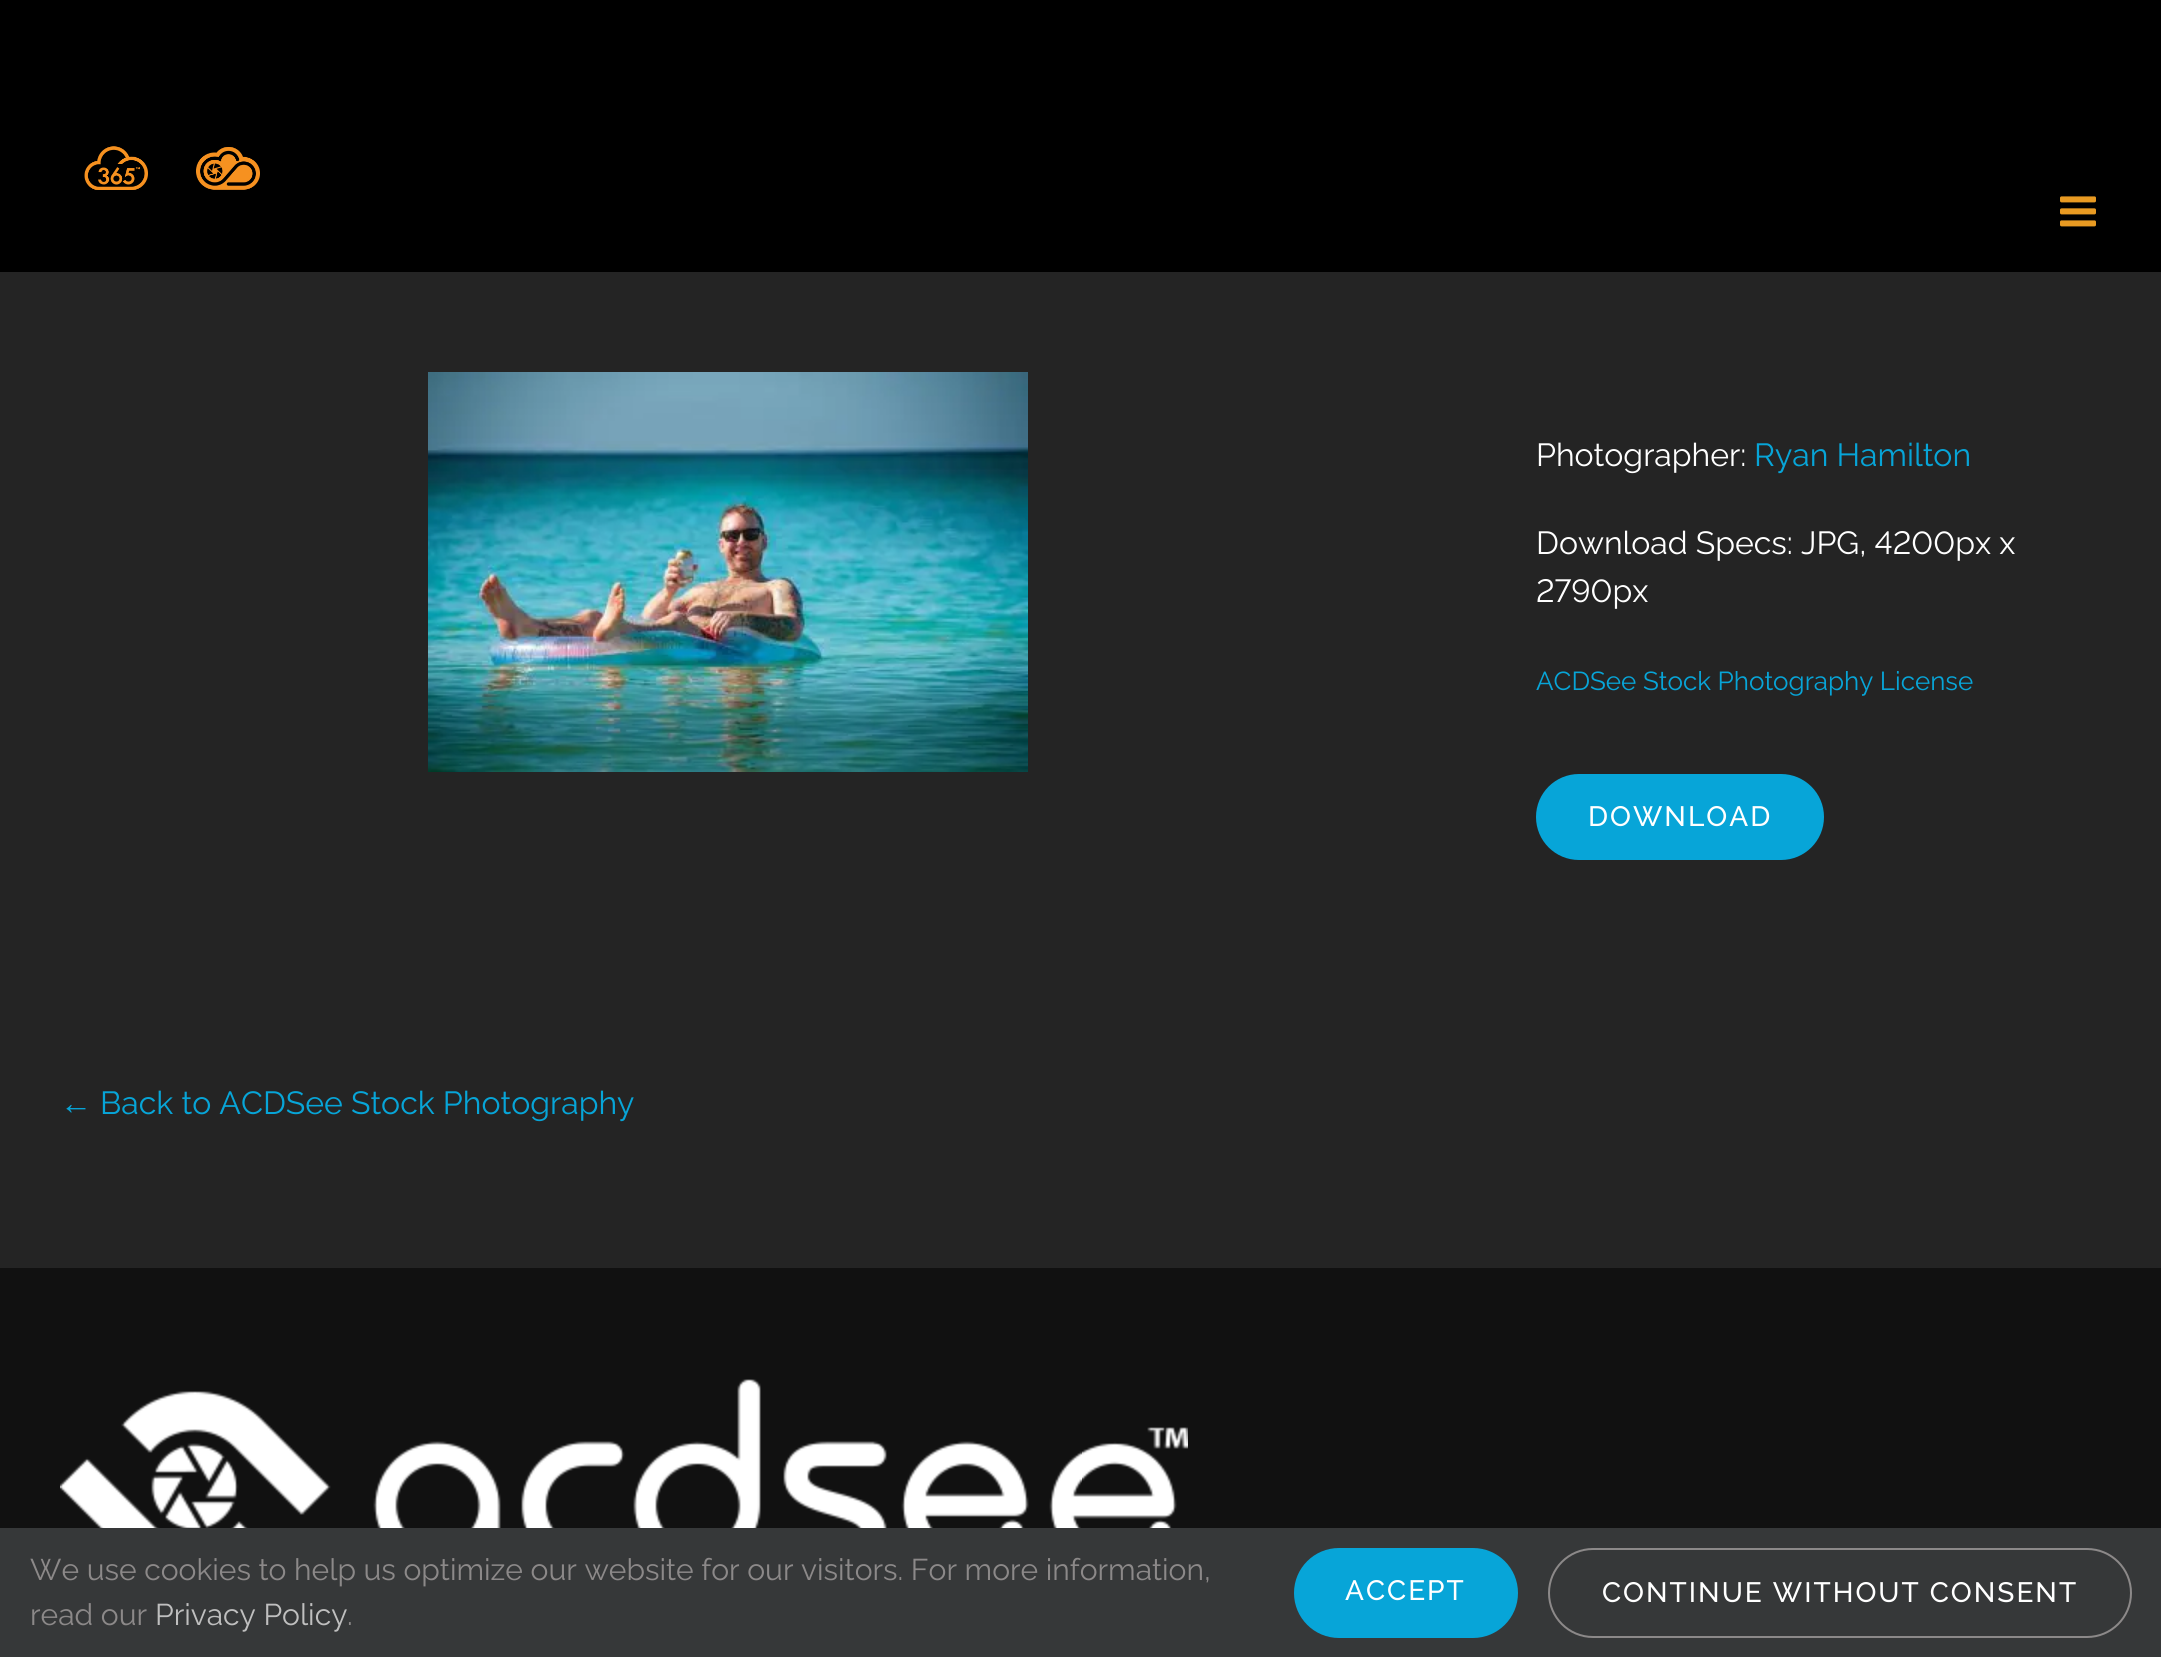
import math
import cairo



def draw_spaced(context, x, y, s, letter, word):
    context.move_to(x, y)
    for ch in s:
        context.show_text(ch)
        context.rel_move_to(letter + word * (ch == ' '), 0)


def rounded_rect(context, x, y, w, h, r):
    context.new_sub_path()
    for i, (u, v) in enumerate([(x + w - r, y + h - r), (x + r, y + h - r), (x + r, y + r), (x + w - r, y + r)]):
        context.arc(u, v, r, i * math.pi / 2, (i + 1) * math.pi / 2)
    context.close_path()


def draw_image(context, path, x, y, w, h):
    context.save()
    context.set_source_surface(cairo.ImageSurface.create_from_png(path), x, y)
    context.rectangle(x, y, w, h)
    context.fill()
    context.restore()


def draw(context):
    context.set_source_rgb(36 / 255, 36 / 255, 36 / 255)
    context.paint()
    context.set_source_rgb(0, 0, 0)
    context.rectangle(0, 0, 2161, 272)
    context.fill()
    draw_image(context, "images/1.png", 84, 146, 64, 44)
    draw_image(context, "images/2.png", 196, 147, 64, 43)
    draw_image(context, "images/3.png", 2060, 196, 36, 31)
    draw_image(context, "images/4.png", 428, 372, 600, 400)
    context.set_source_rgb(7 / 255, 165 / 255, 216 / 255)
    rounded_rect(context, 1536, 774, 288, 86, 43)
    context.fill()
    context.set_source_rgb(17 / 255, 17 / 255, 17 / 255)
    context.rectangle(0, 1268, 2161, 260)
    context.fill()
    draw_image(context, "images/5.png", 60, 1379, 1128, 149)
    context.set_source_rgb(54 / 255, 56 / 255, 57 / 255)
    context.rectangle(0, 1528, 2161, 129)
    context.fill()
    context.set_source_rgb(7 / 255, 165 / 255, 216 / 255)
    rounded_rect(context, 1294, 1548, 224, 90, 45)
    context.fill()
    rounded_rect(context, 1549, 1549, 582, 88, 44)
    context.set_source_rgb(140 / 255, 137 / 255, 137 / 255)
    context.stroke()
    context.select_font_face("Raleway")
    context.set_font_size(32)
    context.set_source_rgb(1, 1, 1)
    context.move_to(1536, 466)
    context.show_text("Photographer:")
    context.set_source_rgb(7 / 255, 165 / 255, 216 / 255)
    context.move_to(1754, 466)
    context.show_text("Ryan Hamilton")
    context.select_font_face("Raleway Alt")
    context.set_source_rgb(1, 1, 1)
    context.move_to(1536, 554)
    context.show_text("Download Specs: JPG, 4200px x")
    context.move_to(1536, 602)
    context.show_text("2790px")
    context.select_font_face("Raleway")
    context.set_font_size(26)
    context.set_source_rgb(7 / 255, 165 / 255, 216 / 255)
    context.move_to(1536, 690)
    context.show_text("ACDSee Stock Photography License")
    context.select_font_face("Raleway Medium")
    context.set_font_size(28)
    context.set_source_rgb(1, 1, 1)
    draw_spaced(context, 1588, 826, "DOWNLOAD", 2, 0)
    context.select_font_face("Liberation Sans")
    context.set_font_size(32)
    context.set_source_rgb(7 / 255, 165 / 255, 216 / 255)
    context.move_to(60, 1114)
    context.show_text("←")
    context.select_font_face("Raleway")
    context.move_to(100, 1114)
    context.show_text("Back to ACDSee Stock Photography")
    context.set_font_size(30)
    context.set_source_rgb(140 / 255, 137 / 255, 137 / 255)
    context.move_to(30, 1580)
    context.show_text("We use cookies to help us optimize our website for our visitors. For more information,")
    context.move_to(30, 1625)
    context.show_text("read our")
    context.set_source_rgb(191 / 255, 191 / 255, 191 / 255)
    context.move_to(155, 1625)
    context.show_text("Privacy Policy")
    context.set_source_rgb(140 / 255, 137 / 255, 137 / 255)
    context.move_to(347, 1625)
    context.show_text(".")
    context.select_font_face("Raleway Medium")
    context.set_font_size(28)
    context.set_source_rgb(1, 1, 1)
    draw_spaced(context, 1345, 1600, "ACCEPT", 2, 0)
    draw_spaced(context, 1602, 1602, "CONTINUE WITHOUT CONSENT", 2, 0)


surface = cairo.ImageSurface(cairo.Format.RGB24, 2161, 1657)
context = cairo.Context(surface)
options = cairo.FontOptions()
options.set_hint_metrics(cairo.HintMetrics.OFF)
options.set_hint_style(cairo.HintStyle.NONE)
context.set_font_options(options)
context.set_miter_limit(4)
draw(context)
surface.write_to_png("out.png")
